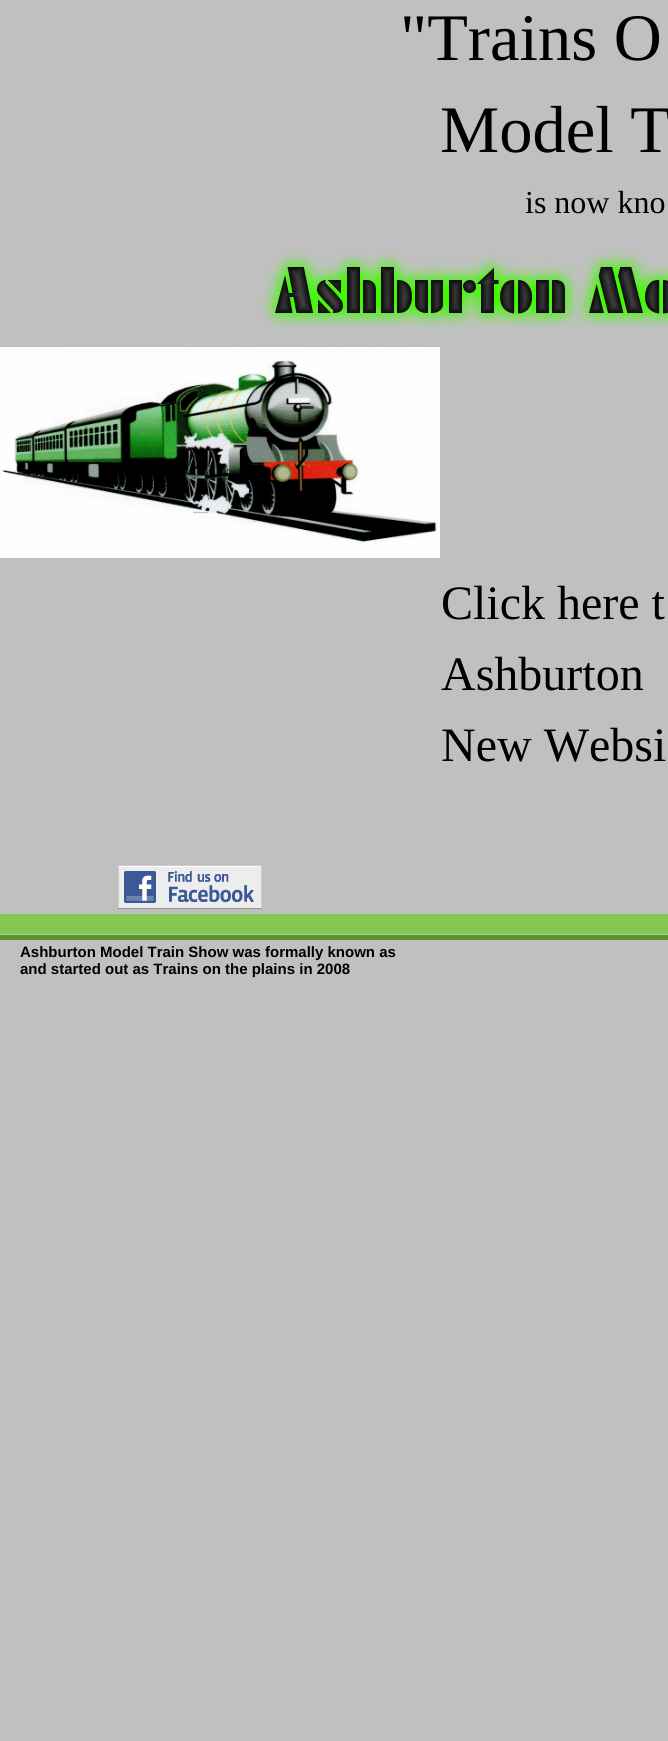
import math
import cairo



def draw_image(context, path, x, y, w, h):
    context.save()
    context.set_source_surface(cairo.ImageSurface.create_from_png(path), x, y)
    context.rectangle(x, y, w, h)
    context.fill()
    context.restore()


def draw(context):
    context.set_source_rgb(192 / 255, 192 / 255, 192 / 255)
    context.paint()
    draw_image(context, "images/1.png", 260, 251, 408, 79)
    draw_image(context, "images/2.png", 0, 347, 440, 211)
    draw_image(context, "images/3.png", 118, 865, 144, 44)
    context.set_source_rgb(132 / 255, 200 / 255, 83 / 255)
    context.rectangle(0, 914, 668, 20)
    context.fill()
    context.set_source_rgb(88 / 255, 150 / 255, 41 / 255)
    context.rectangle(0, 935, 668, 5)
    context.fill()
    context.select_font_face("Liberation Serif")
    context.set_font_size(66.5)
    context.set_source_rgb(0, 0, 0)
    context.move_to(400, 60)
    context.show_text("\"Trains O")
    context.move_to(440, 152)
    context.show_text("Model T")
    context.set_font_size(32)
    context.move_to(525, 213)
    context.show_text("is now kno")
    context.set_font_size(48)
    context.move_to(441, 619)
    context.show_text("Click here t")
    context.move_to(441, 690)
    context.show_text("Ashburton")
    context.move_to(441, 761)
    context.show_text("New Websi")
    context.select_font_face("Liberation Sans", cairo.FontSlant.NORMAL, cairo.FontWeight.BOLD)
    context.set_font_size(15)
    context.move_to(20, 957)
    context.show_text("Ashburton Model Train Show was formally known as")
    context.move_to(20, 974)
    context.show_text("and started out as Trains on the plains in 2008")


surface = cairo.ImageSurface(cairo.Format.RGB24, 668, 1741)
context = cairo.Context(surface)
options = cairo.FontOptions()
options.set_hint_metrics(cairo.HintMetrics.OFF)
options.set_hint_style(cairo.HintStyle.NONE)
context.set_font_options(options)
context.set_miter_limit(4)
draw(context)
surface.write_to_png("out.png")
